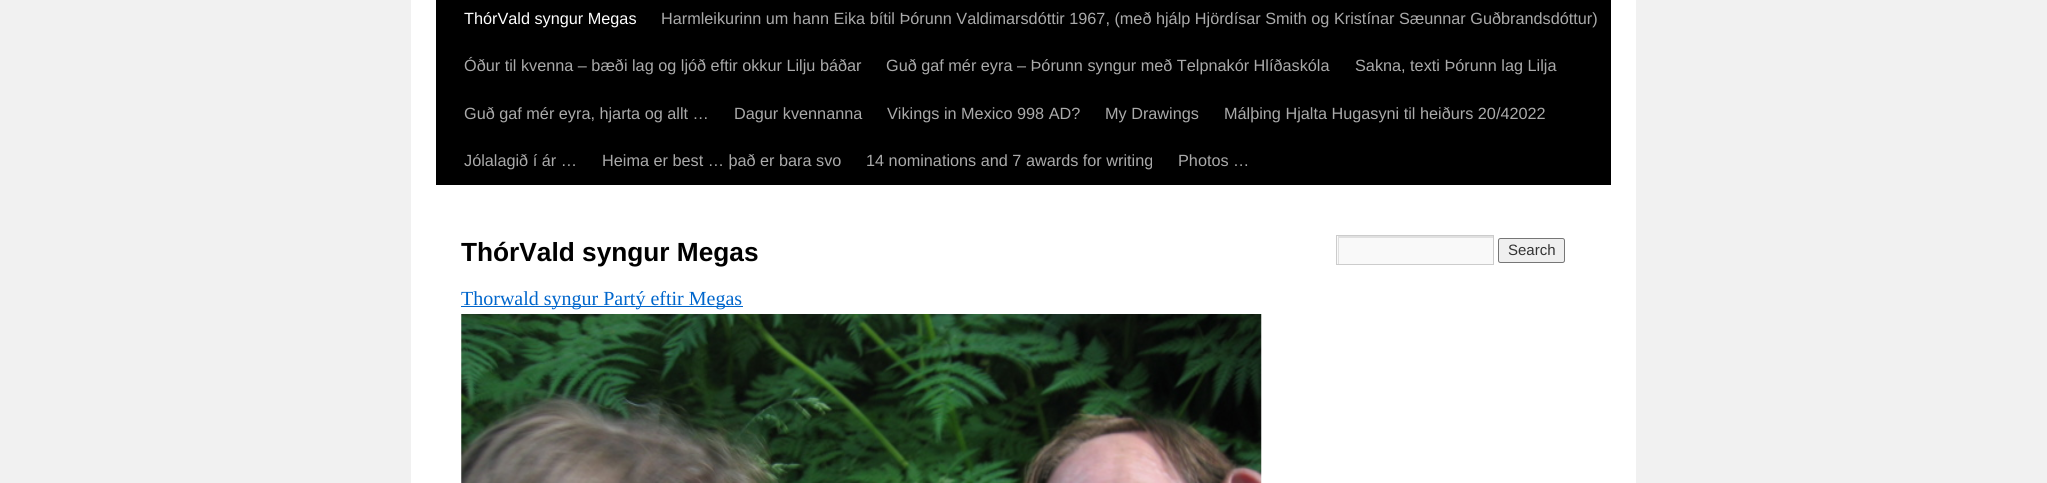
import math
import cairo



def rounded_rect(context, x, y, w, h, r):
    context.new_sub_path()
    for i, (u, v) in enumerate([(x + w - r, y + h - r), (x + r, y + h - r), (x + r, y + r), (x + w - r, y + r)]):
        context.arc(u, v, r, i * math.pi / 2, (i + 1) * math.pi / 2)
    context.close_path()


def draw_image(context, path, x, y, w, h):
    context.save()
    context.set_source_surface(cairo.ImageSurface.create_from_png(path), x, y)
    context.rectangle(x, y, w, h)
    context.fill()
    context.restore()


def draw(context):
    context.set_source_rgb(241 / 255, 241 / 255, 241 / 255)
    context.paint()
    context.set_source_rgb(1, 1, 1)
    context.rectangle(411, 0, 1225, 483)
    context.fill()
    context.set_source_rgb(0, 0, 0)
    context.rectangle(436, 0, 1175, 185)
    context.fill()
    context.set_source_rgb(0, 102 / 255, 204 / 255)
    context.rectangle(461, 306, 282, 1)
    context.fill()
    draw_image(context, "images/1.png", 461, 314, 801, 169)
    context.set_source_rgb(249 / 255, 249 / 255, 249 / 255)
    context.rectangle(1337, 236, 156, 28)
    context.fill()
    context.save()
    context.rectangle(1338, 236, 155, 28)
    context.clip()
    context.set_source_rgb(224 / 255, 224 / 255, 224 / 255)
    context.set_fill_rule(cairo.FillRule.EVEN_ODD)
    context.new_path()
    context.move_to(1214, 112)
    context.line_to(1616, 112)
    context.line_to(1616, 388)
    context.line_to(1214, 388)
    context.close_path()
    context.move_to(1339, 238)
    context.line_to(1494, 238)
    context.line_to(1494, 265)
    context.line_to(1339, 265)
    context.close_path()
    context.fill()
    context.restore()
    context.rectangle(1336.5, 235.5, 157, 29)
    context.set_source_rgb(204 / 255, 204 / 255, 204 / 255)
    context.set_line_width(1)
    context.stroke()
    context.set_source_rgb(239 / 255, 239 / 255, 239 / 255)
    rounded_rect(context, 1498.5, 238.5, 66, 24, 2)
    context.fill_preserve()
    context.set_source_rgb(118 / 255, 118 / 255, 118 / 255)
    context.stroke()
    context.select_font_face("Liberation Sans")
    context.set_font_size(16.25)
    context.set_source_rgb(1, 1, 1)
    context.move_to(464, 24)
    context.show_text("ThórVald syngur Megas")
    context.set_source_rgb(170 / 255, 170 / 255, 170 / 255)
    context.move_to(661, 24)
    context.show_text("Harmleikurinn um hann Eika bítil Þórunn Valdimarsdóttir 1967, (með hjálp Hjördísar Smith og Kristínar Sæunnar Guðbrandsdóttur)")
    context.move_to(464, 71)
    context.show_text("Óður til kvenna – bæði lag og ljóð eftir okkur Lilju báðar")
    context.move_to(886, 71)
    context.show_text("Guð gaf mér eyra – Þórunn syngur með Telpnakór Hlíðaskóla")
    context.move_to(1355, 71)
    context.show_text("Sakna, texti Þórunn lag Lilja")
    context.move_to(464, 119)
    context.show_text("Guð gaf mér eyra, hjarta og allt …")
    context.move_to(734, 119)
    context.show_text("Dagur kvennanna")
    context.move_to(887, 119)
    context.show_text("Vikings in Mexico 998 AD?")
    context.move_to(1105, 119)
    context.show_text("My Drawings")
    context.move_to(1224, 119)
    context.show_text("Málþing Hjalta Hugasyni til heiðurs 20/42022")
    context.move_to(464, 166)
    context.show_text("Jólalagið í ár …")
    context.move_to(602, 166)
    context.show_text("Heima er best … það er bara svo")
    context.move_to(866, 166)
    context.show_text("14 nominations and 7 awards for writing")
    context.move_to(1178, 166)
    context.show_text("Photos …")
    context.select_font_face("Liberation Sans", cairo.FontSlant.NORMAL, cairo.FontWeight.BOLD)
    context.set_font_size(26.25)
    context.set_source_rgb(0, 0, 0)
    context.move_to(461, 261)
    context.show_text("ThórVald syngur Megas")
    context.select_font_face("Liberation Serif")
    context.set_font_size(20)
    context.set_source_rgb(0, 102 / 255, 204 / 255)
    context.move_to(461, 305)
    context.show_text("Thorwald syngur Partý eftir Megas")
    context.select_font_face("Liberation Sans")
    context.set_font_size(15)
    context.set_source_rgb(51 / 255, 51 / 255, 51 / 255)
    context.move_to(1508, 255)
    context.show_text("Search")


surface = cairo.ImageSurface(cairo.Format.RGB24, 2047, 483)
context = cairo.Context(surface)
options = cairo.FontOptions()
options.set_hint_metrics(cairo.HintMetrics.OFF)
options.set_hint_style(cairo.HintStyle.NONE)
context.set_font_options(options)
context.set_miter_limit(4)
draw(context)
surface.write_to_png("out.png")
